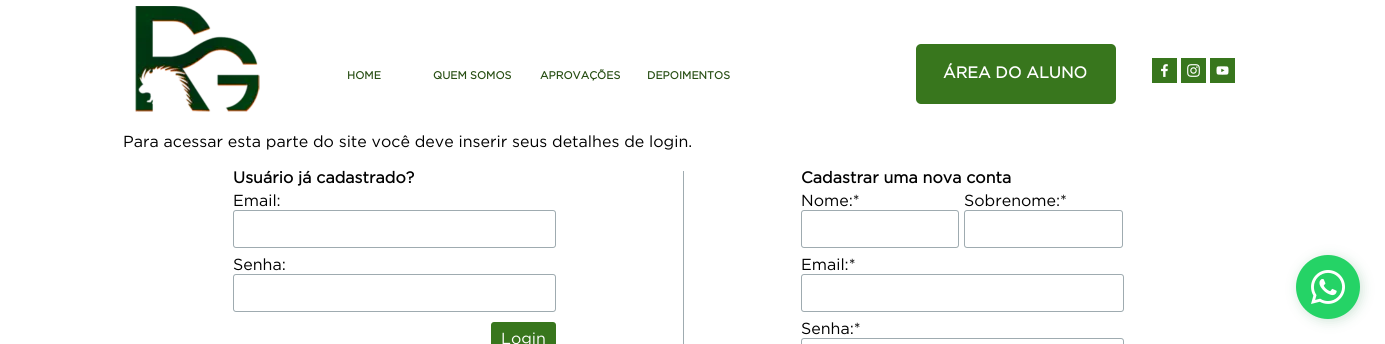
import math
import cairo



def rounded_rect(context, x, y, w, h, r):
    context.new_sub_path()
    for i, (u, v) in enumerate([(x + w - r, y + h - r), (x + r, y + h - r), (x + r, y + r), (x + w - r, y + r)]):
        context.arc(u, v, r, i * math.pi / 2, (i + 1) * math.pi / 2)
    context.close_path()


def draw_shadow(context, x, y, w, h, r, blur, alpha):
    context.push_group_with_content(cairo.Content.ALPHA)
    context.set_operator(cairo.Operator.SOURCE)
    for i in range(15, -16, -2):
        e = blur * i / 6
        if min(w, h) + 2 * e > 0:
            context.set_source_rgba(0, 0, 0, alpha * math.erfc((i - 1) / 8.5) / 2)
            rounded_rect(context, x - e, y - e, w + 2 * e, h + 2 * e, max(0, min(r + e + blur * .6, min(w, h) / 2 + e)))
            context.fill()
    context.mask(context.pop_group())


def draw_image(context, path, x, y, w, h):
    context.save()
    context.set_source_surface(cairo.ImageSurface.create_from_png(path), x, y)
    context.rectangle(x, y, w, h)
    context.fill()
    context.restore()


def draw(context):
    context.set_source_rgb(1, 1, 1)
    context.paint()
    draw_image(context, "images/1.png", 135, 6, 125, 106)
    context.set_source_rgb(56 / 255, 118 / 255, 29 / 255)
    rounded_rect(context, 916, 44, 200, 60, 5)
    context.fill()
    context.rectangle(1152, 58, 25, 25)
    context.fill()
    draw_image(context, "images/2.png", 1161, 64, 7, 13)
    context.rectangle(1181, 58, 25, 25)
    context.fill()
    draw_image(context, "images/3.png", 1187, 64, 13, 13)
    context.rectangle(1210, 58, 25, 25)
    context.fill()
    draw_image(context, "images/4.png", 1216, 66, 13, 9)
    rounded_rect(context, 233.5, 210.5, 322, 37, 2.5)
    context.set_source_rgb(159 / 255, 171 / 255, 176 / 255)
    context.set_line_width(1)
    context.stroke()
    rounded_rect(context, 233.5, 274.5, 322, 37, 2.5)
    context.stroke()
    context.set_source_rgb(56 / 255, 118 / 255, 29 / 255)
    rounded_rect(context, 491, 322, 65, 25, 3)
    context.fill()
    context.set_source_rgb(159 / 255, 171 / 255, 176 / 255)
    context.rectangle(683, 171, 1, 173)
    context.fill()
    rounded_rect(context, 801.5, 210.5, 157, 37, 2.5)
    context.stroke()
    rounded_rect(context, 964.5, 210.5, 158, 37, 2.5)
    context.stroke()
    rounded_rect(context, 801.5, 274.5, 322, 37, 2.5)
    context.stroke()
    rounded_rect(context, 801.5, 338.5, 322, 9, 2.5)
    context.stroke()
    context.set_source_rgb(22 / 255, 124 / 255, 60 / 255)
    draw_shadow(context, 1298, 257, 64, 64, 32, 6, 0.2)
    context.set_source_rgb(37 / 255, 211 / 255, 102 / 255)
    context.arc(1328, 287, 32, 0, 2 * math.pi)
    context.fill()
    draw_image(context, "images/5.png", 1311, 270, 34, 34)
    context.select_font_face("Gotham", cairo.FontSlant.NORMAL, cairo.FontWeight.BOLD)
    context.set_font_size(10.75)
    context.set_source_rgb(39 / 255, 78 / 255, 19 / 255)
    context.move_to(347, 79)
    context.show_text("HOME")
    context.move_to(433, 79)
    context.show_text("QUEM SOMOS")
    context.move_to(540, 79)
    context.show_text("APROVAÇÕES")
    context.move_to(647, 79)
    context.show_text("DEPOIMENTOS")
    context.set_font_size(16)
    context.set_source_rgb(1, 1, 1)
    context.move_to(943, 78)
    context.show_text("ÁREA DO ALUNO")
    context.select_font_face("Gotham")
    context.set_source_rgb(0, 0, 0)
    context.move_to(123, 147)
    context.show_text("Para acessar esta parte do site você deve inserir seus detalhes de login.")
    context.select_font_face("Gotham", cairo.FontSlant.NORMAL, cairo.FontWeight.BOLD)
    context.move_to(233, 183)
    context.show_text("Usuário já cadastrado?")
    context.select_font_face("Gotham")
    context.move_to(233, 206)
    context.show_text("Email:")
    context.move_to(233, 270)
    context.show_text("Senha:")
    context.set_source_rgb(1, 1, 1)
    context.move_to(501, 344)
    context.show_text("Login")
    context.select_font_face("Gotham", cairo.FontSlant.NORMAL, cairo.FontWeight.BOLD)
    context.set_source_rgb(0, 0, 0)
    context.move_to(801, 183)
    context.show_text("Cadastrar uma nova conta")
    context.select_font_face("Gotham")
    context.move_to(801, 206)
    context.show_text("Nome:*")
    context.move_to(964, 206)
    context.show_text("Sobrenome:*")
    context.move_to(801, 270)
    context.show_text("Email:*")
    context.move_to(801, 334)
    context.show_text("Senha:*")


surface = cairo.ImageSurface(cairo.Format.RGB24, 1385, 344)
context = cairo.Context(surface)
options = cairo.FontOptions()
options.set_hint_metrics(cairo.HintMetrics.OFF)
options.set_hint_style(cairo.HintStyle.NONE)
context.set_font_options(options)
context.set_miter_limit(4)
draw(context)
surface.write_to_png("out.png")
